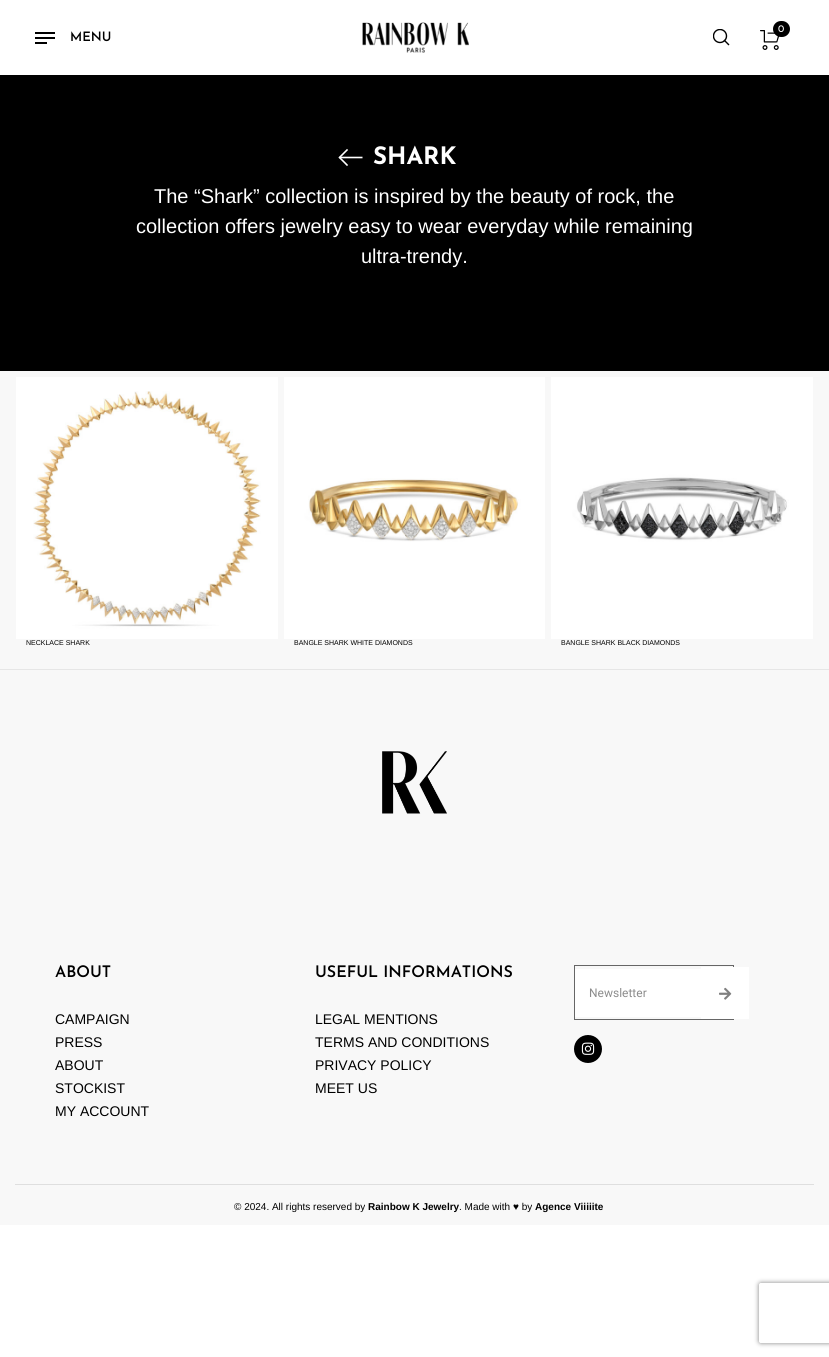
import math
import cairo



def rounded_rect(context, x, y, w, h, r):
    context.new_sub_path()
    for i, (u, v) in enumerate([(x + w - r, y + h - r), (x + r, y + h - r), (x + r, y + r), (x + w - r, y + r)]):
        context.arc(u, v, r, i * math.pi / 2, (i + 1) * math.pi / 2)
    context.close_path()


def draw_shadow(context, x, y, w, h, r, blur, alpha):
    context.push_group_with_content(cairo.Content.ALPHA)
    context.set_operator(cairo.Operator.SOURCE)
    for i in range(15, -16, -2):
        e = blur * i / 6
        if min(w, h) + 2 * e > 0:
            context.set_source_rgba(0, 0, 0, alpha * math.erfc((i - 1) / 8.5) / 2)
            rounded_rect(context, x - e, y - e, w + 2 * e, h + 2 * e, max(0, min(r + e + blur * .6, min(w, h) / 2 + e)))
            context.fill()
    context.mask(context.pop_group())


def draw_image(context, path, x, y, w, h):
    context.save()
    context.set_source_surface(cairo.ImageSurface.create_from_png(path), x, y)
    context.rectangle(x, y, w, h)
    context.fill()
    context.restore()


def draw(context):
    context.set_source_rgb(1, 1, 1)
    context.paint()
    draw_image(context, "images/1.png", 362, 22, 107, 31)
    context.new_path()
    context.move_to(728.5, 44.5)
    context.line_to(724.5, 40.5)
    context.set_source_rgb(0, 0, 0)
    context.set_line_width(1.4)
    context.set_line_cap(cairo.LineCap.SQUARE)
    context.stroke()
    context.save()
    context.rectangle(713, 29, 17, 17)
    context.clip()
    context.arc(720, 36, 6.5, 0, 2 * math.pi)
    context.set_line_cap(cairo.LineCap.BUTT)
    context.stroke()
    context.restore()
    draw_image(context, "images/2.png", 760, 30, 20, 20)
    rounded_rect(context, 773, 21, 17, 16, 8)
    context.fill()
    context.rectangle(35, 32, 20, 2)
    context.fill()
    context.rectangle(35, 37, 20, 2)
    context.fill()
    context.rectangle(35, 42, 12, 2)
    context.fill()
    context.rectangle(0, 75, 829, 296)
    context.fill()
    context.new_path()
    context.move_to(362.5, 157.5)
    context.line_to(339.5, 157.5)
    context.set_source_rgb(1, 1, 1)
    context.set_line_width(1.6)
    context.set_line_cap(cairo.LineCap.BUTT)
    context.stroke()
    context.new_path()
    context.move_to(347, 165)
    context.line_to(339.5, 157.5)
    context.line_to(347, 150)
    context.set_line_cap(cairo.LineCap.SQUARE)
    context.stroke()
    context.set_source_rgb(230 / 255, 230 / 255, 230 / 255)
    context.rectangle(0, 669, 829, 1)
    context.fill()
    context.set_source_rgb(248 / 255, 248 / 255, 248 / 255)
    context.rectangle(0, 371, 829, 298)
    context.fill()
    draw_image(context, "images/3.png", 16, 377, 262, 262)
    draw_image(context, "images/4.png", 284, 377, 261, 262)
    draw_image(context, "images/5.png", 551, 377, 262, 262)
    context.rectangle(0, 670, 829, 555)
    context.fill()
    context.set_source_rgb(223 / 255, 223 / 255, 223 / 255)
    context.rectangle(15, 1184, 799, 1)
    context.fill()
    draw_image(context, "images/6.png", 382, 751, 65, 63)
    context.rectangle(574.5, 965.5, 159, 54)
    context.set_source_rgb(102 / 255, 102 / 255, 102 / 255)
    context.set_line_width(1)
    context.set_line_cap(cairo.LineCap.BUTT)
    context.stroke()
    context.set_source_rgb(1, 1, 1)
    context.rectangle(575, 969, 126, 48)
    context.fill()
    context.rectangle(701, 967, 48, 52)
    context.fill()
    draw_image(context, "images/7.png", 719, 987, 13, 13)
    context.save()
    context.set_fill_rule(cairo.FillRule.EVEN_ODD)
    context.new_path()
    context.move_to(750, 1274)
    context.line_to(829, 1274)
    context.line_to(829, 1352)
    context.line_to(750, 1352)
    context.close_path()
    context.move_to(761, 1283)
    context.line_to(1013, 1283)
    context.curve_to(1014, 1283, 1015, 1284, 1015, 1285)
    context.line_to(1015, 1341)
    context.curve_to(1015, 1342, 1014, 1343, 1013, 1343)
    context.line_to(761, 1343)
    context.curve_to(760, 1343, 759, 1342, 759, 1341)
    context.line_to(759, 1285)
    context.curve_to(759, 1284, 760, 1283, 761, 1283)
    context.close_path()
    context.clip()
    context.set_source_rgb(128 / 255, 128 / 255, 128 / 255)
    draw_shadow(context, 759, 1283, 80, 60, 2, 2.5, 1)
    context.restore()
    context.set_source_rgb(0, 0, 0)
    context.arc(588, 1049, 14, 0, 2 * math.pi)
    context.fill()
    draw_image(context, "images/8.png", 581, 1042, 14, 13)
    context.select_font_face("Josefin Sans")
    context.set_font_size(10)
    context.set_source_rgb(1, 1, 1)
    context.move_to(778, 32)
    context.show_text("0")
    context.select_font_face("Josefin Sans SemiBold")
    context.set_font_size(13)
    context.set_source_rgb(0, 0, 0)
    context.move_to(70, 41)
    context.show_text("MENU")
    context.select_font_face("Josefin Sans", cairo.FontSlant.NORMAL, cairo.FontWeight.BOLD)
    context.set_font_size(24)
    context.set_source_rgb(1, 1, 1)
    context.move_to(373, 164)
    context.show_text("SHARK")
    context.select_font_face("Liberation Sans")
    context.set_font_size(20)
    context.move_to(154, 203)
    context.show_text("The “Shark” collection is inspired by the beauty of rock, the")
    context.move_to(136, 233)
    context.show_text("collection offers jewelry easy to wear everyday while remaining")
    context.move_to(361, 263)
    context.show_text("ultra-trendy.")
    context.set_font_size(7)
    context.set_source_rgb(0, 0, 0)
    context.move_to(26, 645)
    context.show_text("NECKLACE SHARK")
    context.move_to(294, 645)
    context.show_text("BANGLE SHARK WHITE DIAMONDS")
    context.move_to(561, 645)
    context.show_text("BANGLE SHARK BLACK DIAMONDS")
    context.select_font_face("Josefin Sans SemiBold")
    context.set_font_size(16)
    context.move_to(55, 977)
    context.show_text("ABOUT")
    context.select_font_face("Liberation Sans")
    context.set_font_size(14)
    context.move_to(55, 1024)
    context.show_text("CAMPAIGN")
    context.move_to(55, 1047)
    context.show_text("PRESS")
    context.move_to(55, 1070)
    context.show_text("ABOUT")
    context.move_to(55, 1093)
    context.show_text("STOCKIST")
    context.move_to(55, 1116)
    context.show_text("MY ACCOUNT")
    context.select_font_face("Josefin Sans SemiBold")
    context.set_font_size(16)
    context.move_to(315, 977)
    context.show_text("USEFUL INFORMATIONS")
    context.select_font_face("Liberation Sans")
    context.set_font_size(14)
    context.move_to(315, 1024)
    context.show_text("LEGAL MENTIONS")
    context.move_to(315, 1047)
    context.show_text("TERMS AND CONDITIONS")
    context.move_to(315, 1070)
    context.show_text("PRIVACY POLICY")
    context.move_to(315, 1093)
    context.show_text("MEET US")
    context.select_font_face("Roboto")
    context.set_font_size(12)
    context.set_source_rgb(140 / 255, 140 / 255, 140 / 255)
    context.move_to(589, 997)
    context.show_text("Newsletter")
    context.select_font_face("Liberation Sans")
    context.set_font_size(10)
    context.set_source_rgb(0, 0, 0)
    context.move_to(234, 1210)
    context.show_text("© 2024. All rights reserved by")
    context.select_font_face("Liberation Sans", cairo.FontSlant.NORMAL, cairo.FontWeight.BOLD)
    context.move_to(368, 1210)
    context.show_text("Rainbow K Jewelry")
    context.select_font_face("Liberation Sans")
    context.move_to(459, 1210)
    context.show_text(". Made with ♥ by")
    context.select_font_face("Liberation Sans", cairo.FontSlant.NORMAL, cairo.FontWeight.BOLD)
    context.move_to(535, 1210)
    context.show_text("Agence Viiiiite")


surface = cairo.ImageSurface(cairo.Format.RGB24, 829, 1357)
context = cairo.Context(surface)
options = cairo.FontOptions()
options.set_hint_metrics(cairo.HintMetrics.OFF)
options.set_hint_style(cairo.HintStyle.NONE)
context.set_font_options(options)
context.set_miter_limit(4)
draw(context)
surface.write_to_png("out.png")
